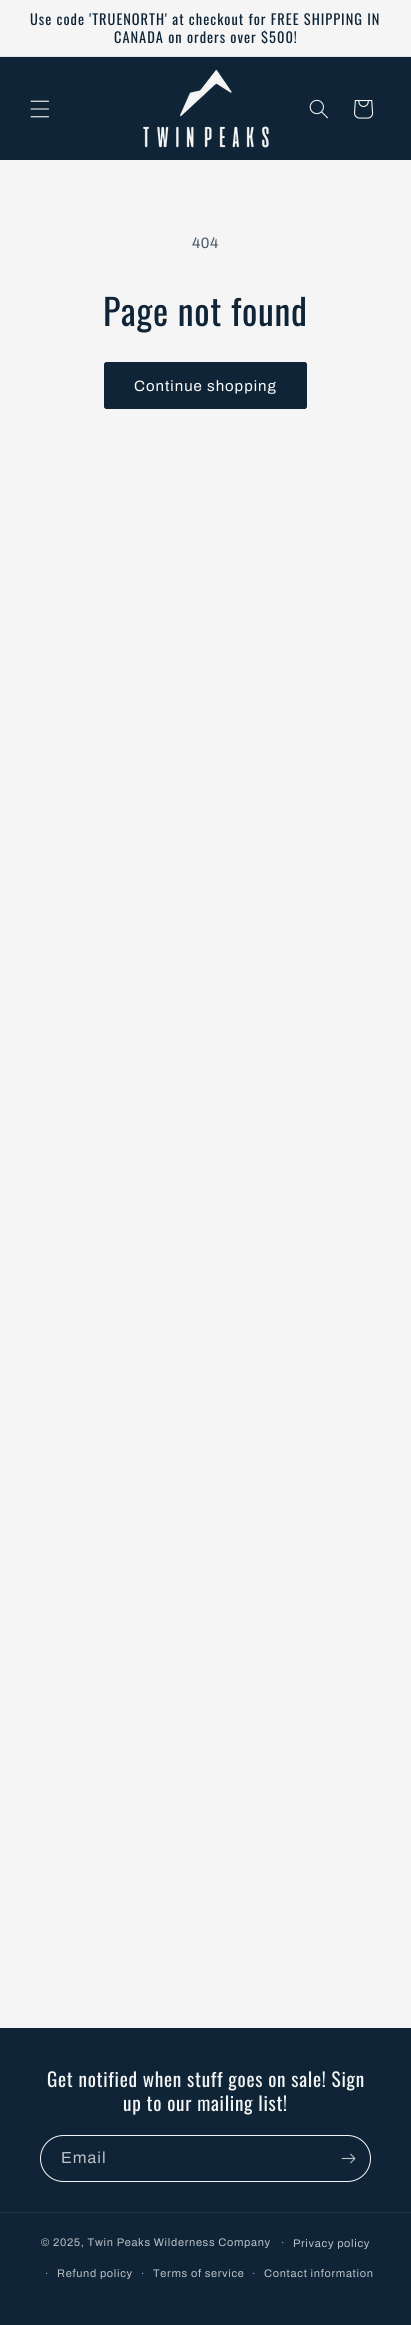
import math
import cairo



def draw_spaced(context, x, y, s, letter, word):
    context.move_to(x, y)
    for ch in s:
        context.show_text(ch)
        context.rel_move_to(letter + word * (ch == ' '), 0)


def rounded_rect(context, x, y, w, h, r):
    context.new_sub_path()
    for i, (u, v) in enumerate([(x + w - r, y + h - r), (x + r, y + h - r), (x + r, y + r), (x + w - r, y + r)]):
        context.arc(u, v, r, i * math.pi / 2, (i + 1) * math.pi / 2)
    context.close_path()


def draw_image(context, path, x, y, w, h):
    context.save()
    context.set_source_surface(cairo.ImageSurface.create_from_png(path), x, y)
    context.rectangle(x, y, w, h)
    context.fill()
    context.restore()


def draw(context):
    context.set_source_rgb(245 / 255, 245 / 255, 245 / 255)
    context.paint()
    context.set_source_rgb(227 / 255, 228 / 255, 230 / 255)
    context.rectangle(0, 56, 411, 1)
    context.fill()
    context.set_source_rgb(15 / 255, 37 / 255, 55 / 255)
    context.rectangle(0, 57, 411, 103)
    context.fill()
    draw_image(context, "images/1.png", 30, 100, 20, 18)
    draw_image(context, "images/2.png", 143, 70, 126, 78)
    draw_image(context, "images/3.png", 309, 99, 19, 20)
    draw_image(context, "images/4.png", 354, 100, 20, 19)
    rounded_rect(context, 104, 362, 203, 47, 3)
    context.fill()
    rounded_rect(context, 104.5, 362.5, 202, 46, 2.5)
    context.set_line_width(1)
    context.stroke()
    context.rectangle(0, 2028, 411, 297)
    context.fill()
    rounded_rect(context, 40.5, 2135.5, 330, 46, 23)
    context.set_source_rgb(245 / 255, 245 / 255, 245 / 255)
    context.stroke()
    draw_image(context, "images/5.png", 341, 2153, 15, 11)
    context.set_source_rgb(33 / 255, 54 / 255, 70 / 255)
    context.rectangle(0, 2212, 411, 1)
    context.fill()
    context.select_font_face("Oswald")
    context.set_font_size(14.4)
    context.set_source_rgb(15 / 255, 37 / 255, 55 / 255)
    draw_spaced(context, 30, 25, "Use code 'TRUENORTH' at checkout for FREE SHIPPING IN", 1, 0)
    draw_spaced(context, 114, 43, "CANADA on orders over $500!", 1, 0)
    context.select_font_face("Archivo")
    context.set_font_size(15)
    context.set_source_rgb(73 / 255, 89 / 255, 103 / 255)
    draw_spaced(context, 192, 248, "404", 0.5, 0)
    context.select_font_face("Oswald")
    context.set_font_size(36)
    context.set_source_rgb(15 / 255, 37 / 255, 55 / 255)
    draw_spaced(context, 103, 326, "Page not found", 0.7, 0)
    context.select_font_face("Archivo")
    context.set_font_size(15)
    context.set_source_rgb(1, 1, 1)
    draw_spaced(context, 134, 391, "Continue shopping", 1, 0)
    context.select_font_face("Oswald")
    context.set_font_size(19.25)
    context.set_source_rgb(245 / 255, 245 / 255, 245 / 255)
    draw_spaced(context, 47, 2087, "Get notified when stuff goes on sale! Sign", 0.7, 0)
    draw_spaced(context, 123, 2111, "up to our mailing list!", 0.7, 0)
    context.select_font_face("Archivo")
    context.set_font_size(16)
    context.set_source_rgb(188 / 255, 193 / 255, 198 / 255)
    draw_spaced(context, 61, 2163, "Email", 1, 0)
    context.set_font_size(11)
    draw_spaced(context, 41, 2246, "© 2025, Twin Peaks Wilderness Company", 0.7, 0)
    context.set_font_size(10)
    draw_spaced(context, 281, 2246, "·", 0.7, 0)
    context.set_font_size(11)
    draw_spaced(context, 293, 2247, "Privacy policy", 0.7, 0)
    context.set_font_size(10)
    draw_spaced(context, 45, 2277, "·", 0.7, 0)
    context.set_font_size(11)
    draw_spaced(context, 57, 2277, "Refund policy", 0.7, 0)
    context.set_font_size(10)
    draw_spaced(context, 141, 2277, "·", 0.7, 0)
    context.set_font_size(11)
    draw_spaced(context, 153, 2277, "Terms of service", 0.7, 0)
    context.set_font_size(10)
    draw_spaced(context, 252, 2277, "·", 0.7, 0)
    context.set_font_size(11)
    draw_spaced(context, 264, 2277, "Contact information", 0.7, 0)


surface = cairo.ImageSurface(cairo.Format.RGB24, 411, 2325)
context = cairo.Context(surface)
options = cairo.FontOptions()
options.set_hint_metrics(cairo.HintMetrics.OFF)
options.set_hint_style(cairo.HintStyle.NONE)
context.set_font_options(options)
context.set_miter_limit(4)
draw(context)
surface.write_to_png("out.png")
